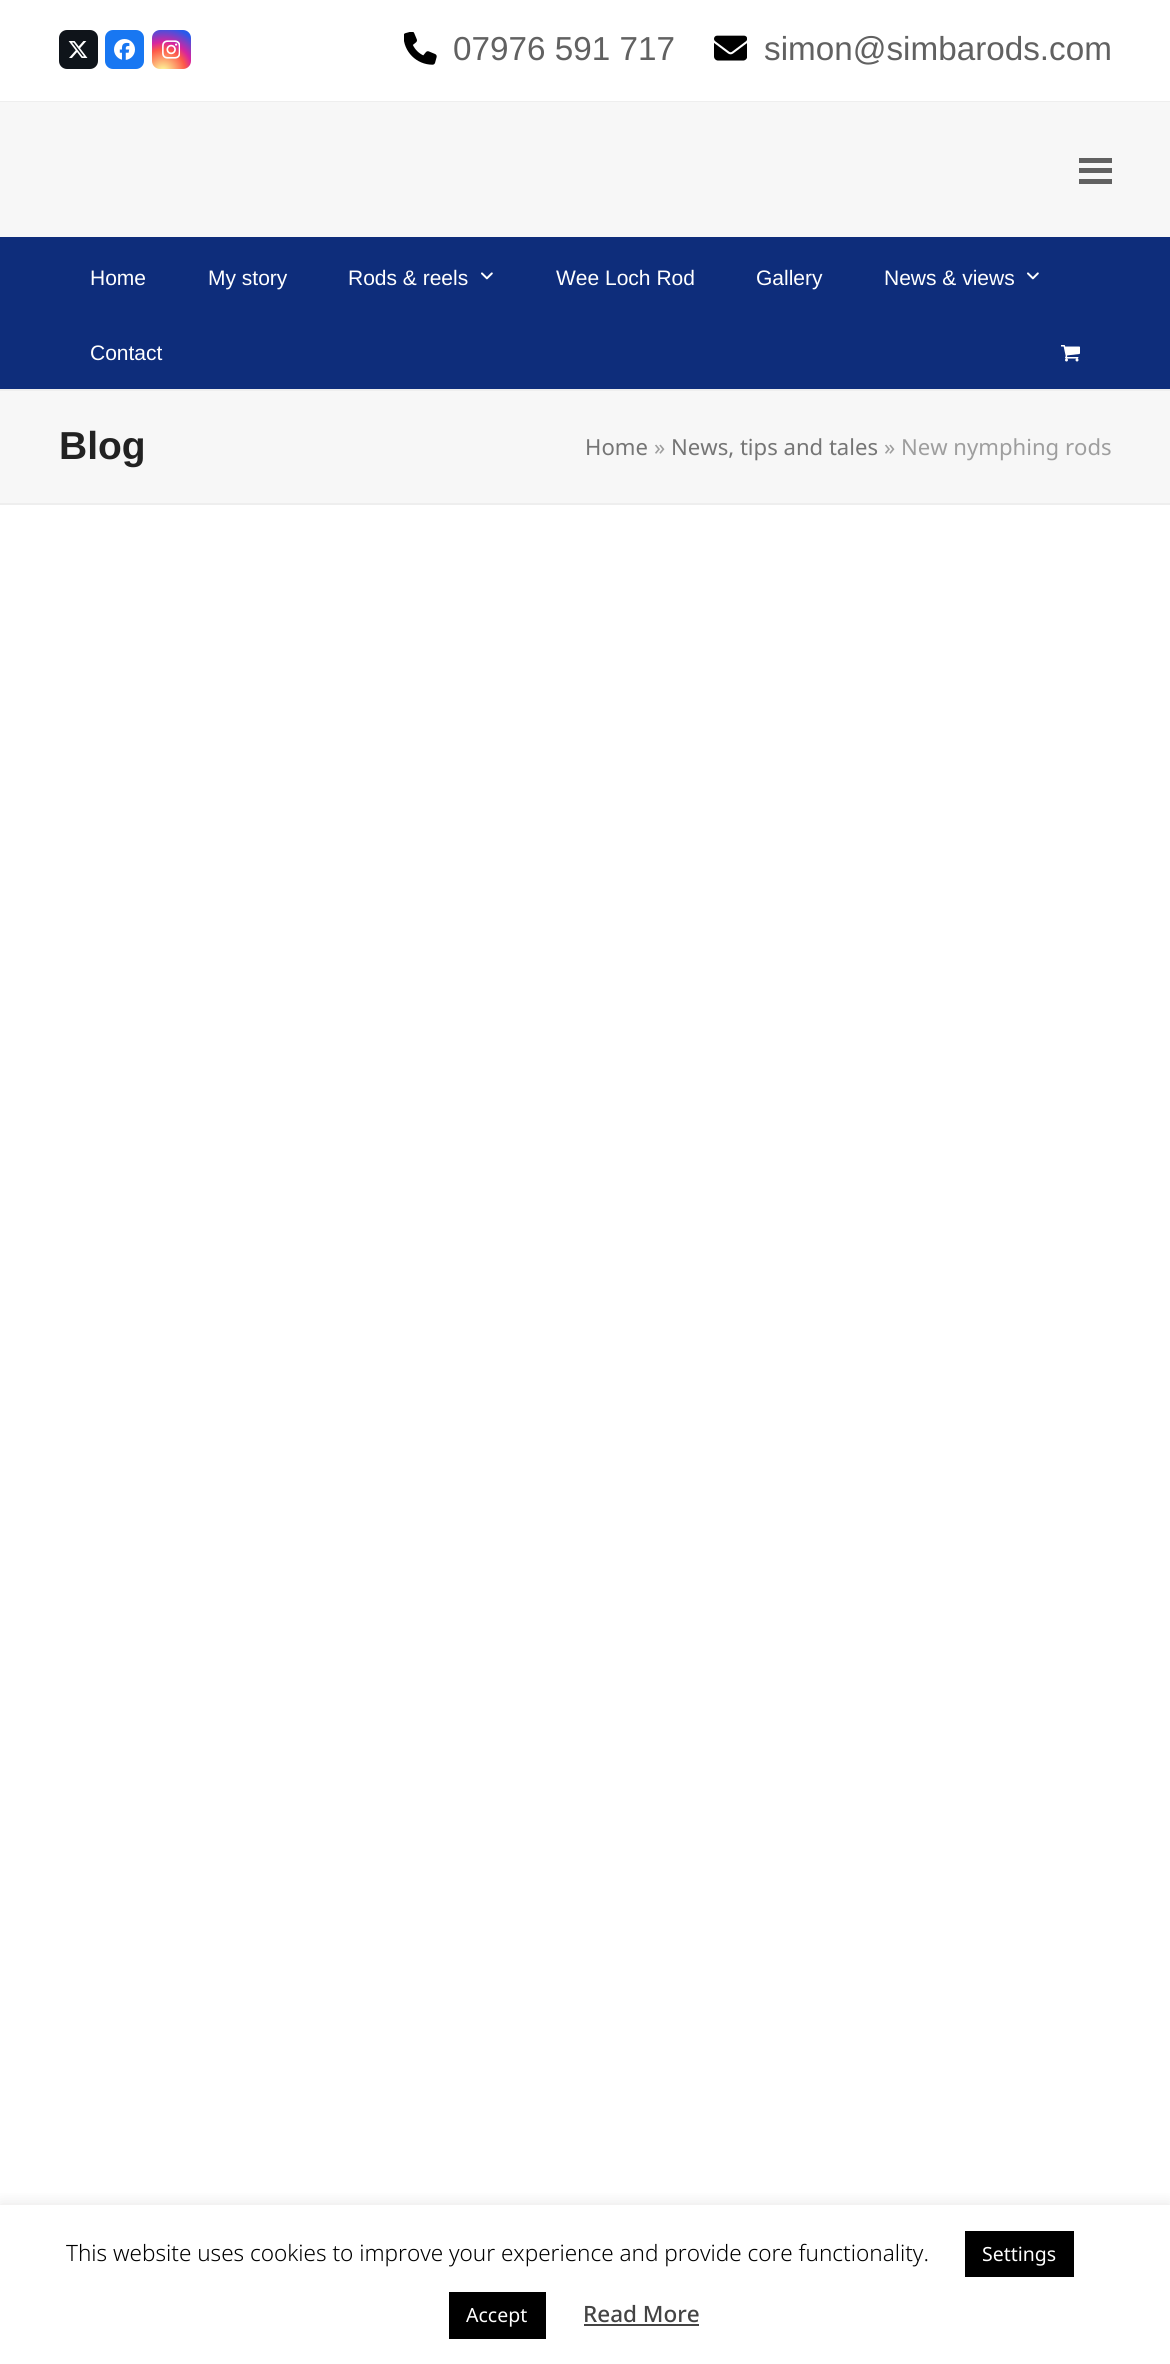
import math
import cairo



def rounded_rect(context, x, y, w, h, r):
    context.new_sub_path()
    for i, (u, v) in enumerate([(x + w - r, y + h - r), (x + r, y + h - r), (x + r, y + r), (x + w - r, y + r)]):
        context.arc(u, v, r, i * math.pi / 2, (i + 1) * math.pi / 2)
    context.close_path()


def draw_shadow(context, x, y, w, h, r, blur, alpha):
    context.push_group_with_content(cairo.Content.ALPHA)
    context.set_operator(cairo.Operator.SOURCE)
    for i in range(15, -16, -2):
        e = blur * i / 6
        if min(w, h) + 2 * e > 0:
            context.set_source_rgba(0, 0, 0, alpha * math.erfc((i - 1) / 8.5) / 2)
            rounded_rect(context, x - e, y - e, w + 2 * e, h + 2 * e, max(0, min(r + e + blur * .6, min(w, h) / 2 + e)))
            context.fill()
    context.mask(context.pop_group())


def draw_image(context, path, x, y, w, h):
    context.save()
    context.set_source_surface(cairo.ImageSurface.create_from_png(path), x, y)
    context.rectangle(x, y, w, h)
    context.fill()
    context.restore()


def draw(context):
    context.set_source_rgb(1, 1, 1)
    context.paint()
    context.set_source_rgb(238 / 255, 238 / 255, 238 / 255)
    context.rectangle(0, 101, 1170, 1)
    context.fill()
    context.set_source_rgb(15 / 255, 20 / 255, 26 / 255)
    rounded_rect(context, 59, 30, 39, 39, 8)
    context.fill()
    draw_image(context, "images/1.png", 68, 41, 20, 17)
    context.set_source_rgb(24 / 255, 119 / 255, 242 / 255)
    rounded_rect(context, 105, 30, 39, 39, 8)
    context.fill()
    draw_image(context, "images/2.png", 114, 39, 21, 21)
    gradient = cairo.RadialGradient(163, 72, 0, 163, 72, 50)
    gradient.add_color_stop_rgba(0, 253 / 255, 244 / 255, 151 / 255, 1)
    gradient.add_color_stop_rgba(0.05, 253 / 255, 244 / 255, 151 / 255, 1)
    gradient.add_color_stop_rgba(0.45, 253 / 255, 89 / 255, 73 / 255, 1)
    gradient.add_color_stop_rgba(0.6, 214 / 255, 36 / 255, 159 / 255, 1)
    gradient.add_color_stop_rgba(0.9, 40 / 255, 90 / 255, 235 / 255, 1)
    context.set_source(gradient)
    rounded_rect(context, 152, 30, 39, 39, 8)
    context.fill()
    draw_image(context, "images/3.png", 162, 40, 18, 19)
    draw_image(context, "images/4.png", 404, 32, 33, 33)
    draw_image(context, "images/5.png", 714, 35, 33, 26)
    context.set_source_rgb(247 / 255, 247 / 255, 247 / 255)
    context.rectangle(0, 102, 1170, 135)
    context.fill()
    context.set_source_rgb(97 / 255, 97 / 255, 97 / 255)
    context.rectangle(1079, 168, 33, 5)
    context.fill()
    context.rectangle(1079, 158, 33, 5)
    context.fill()
    context.rectangle(1079, 179, 33, 5)
    context.fill()
    context.set_source_rgb(14 / 255, 45 / 255, 123 / 255)
    context.rectangle(0, 237, 1170, 152)
    context.fill()
    draw_image(context, "images/6.png", 481, 272, 12, 8)
    draw_image(context, "images/6.png", 1027, 272, 12, 8)
    draw_image(context, "images/7.png", 1061, 345, 19, 17)
    context.set_source_rgb(247 / 255, 247 / 255, 247 / 255)
    context.rectangle(0, 391, 1170, 112)
    context.fill()
    context.set_source_rgb(238 / 255, 238 / 255, 238 / 255)
    context.rectangle(0, 389, 1170, 2)
    context.fill()
    context.rectangle(0, 503, 1170, 2)
    context.fill()
    context.save()
    context.rectangle(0, 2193, 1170, 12)
    context.clip()
    context.set_source_rgb(172 / 255, 171 / 255, 171 / 255)
    draw_shadow(context, 0, 2204, 1170, 159, 0, 7.5, 0.3)
    context.restore()
    context.set_source_rgb(0, 0, 0)
    context.rectangle(965, 2231, 109, 46)
    context.fill()
    context.rectangle(449, 2292, 97, 47)
    context.fill()
    context.set_source_rgb(68 / 255, 68 / 255, 68 / 255)
    context.rectangle(584, 2324, 115, 2)
    context.fill()
    context.select_font_face("Liberation Sans")
    context.set_font_size(33.25)
    context.set_source_rgb(97 / 255, 97 / 255, 97 / 255)
    context.move_to(453, 60)
    context.show_text("07976 591 717")
    context.move_to(764, 60)
    context.show_text("simon@simbarods.com")
    context.set_font_size(21)
    context.set_source_rgb(1, 1, 1)
    context.move_to(90, 285)
    context.show_text("Home")
    context.move_to(208, 285)
    context.show_text("My story")
    context.move_to(348, 285)
    context.show_text("Rods & reels")
    context.move_to(556, 285)
    context.show_text("Wee Loch Rod")
    context.move_to(756, 285)
    context.show_text("Gallery")
    context.move_to(884, 285)
    context.show_text("News & views")
    context.move_to(90, 360)
    context.show_text("Contact")
    context.select_font_face("Liberation Sans", cairo.FontSlant.NORMAL, cairo.FontWeight.BOLD)
    context.set_font_size(39)
    context.set_source_rgb(34 / 255, 34 / 255, 34 / 255)
    context.move_to(59, 459)
    context.show_text("Blog")
    context.select_font_face("Noto Sans")
    context.set_font_size(22.1)
    context.set_source_rgb(117 / 255, 117 / 255, 117 / 255)
    context.move_to(585, 455)
    context.show_text("Home")
    context.set_source_rgb(158 / 255, 158 / 255, 158 / 255)
    context.move_to(654, 455)
    context.show_text("»")
    context.set_source_rgb(117 / 255, 117 / 255, 117 / 255)
    context.move_to(671, 455)
    context.show_text("News, tips and tales")
    context.set_source_rgb(158 / 255, 158 / 255, 158 / 255)
    context.move_to(884, 455)
    context.show_text("» New nymphing rods")
    context.select_font_face("Noto Sans Light")
    context.set_font_size(22.5)
    context.set_source_rgb(0, 0, 0)
    context.move_to(66, 2261)
    context.show_text("This website uses cookies to improve your experience and provide core functionality.")
    context.select_font_face("Noto Sans")
    context.set_font_size(19.5)
    context.set_source_rgb(1, 1, 1)
    context.move_to(982, 2261)
    context.show_text("Settings")
    context.move_to(466, 2322)
    context.show_text("Accept")
    context.select_font_face("Noto Sans Medium")
    context.set_font_size(22.5)
    context.set_source_rgb(68 / 255, 68 / 255, 68 / 255)
    context.move_to(583, 2322)
    context.show_text("Read More")


surface = cairo.ImageSurface(cairo.Format.RGB24, 1170, 2364)
context = cairo.Context(surface)
options = cairo.FontOptions()
options.set_hint_metrics(cairo.HintMetrics.OFF)
options.set_hint_style(cairo.HintStyle.NONE)
context.set_font_options(options)
context.set_miter_limit(4)
draw(context)
surface.write_to_png("out.png")
